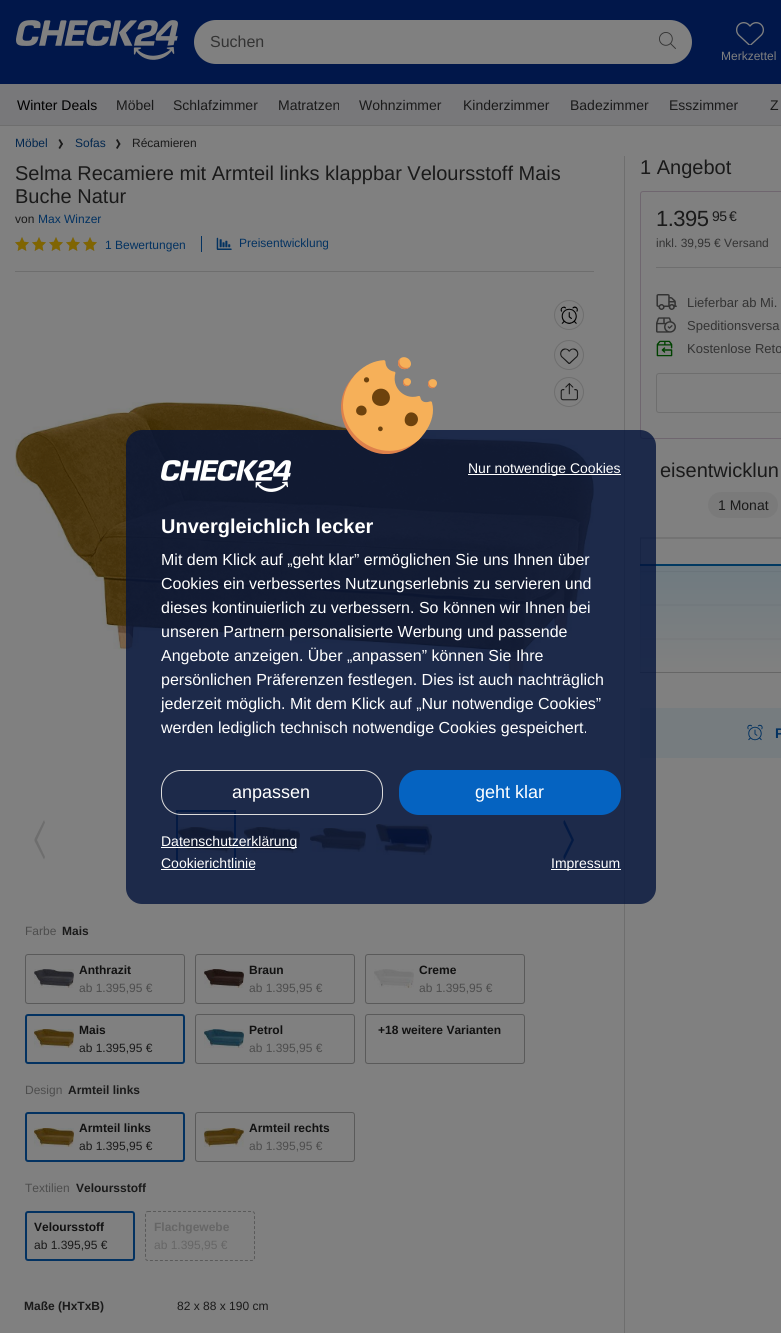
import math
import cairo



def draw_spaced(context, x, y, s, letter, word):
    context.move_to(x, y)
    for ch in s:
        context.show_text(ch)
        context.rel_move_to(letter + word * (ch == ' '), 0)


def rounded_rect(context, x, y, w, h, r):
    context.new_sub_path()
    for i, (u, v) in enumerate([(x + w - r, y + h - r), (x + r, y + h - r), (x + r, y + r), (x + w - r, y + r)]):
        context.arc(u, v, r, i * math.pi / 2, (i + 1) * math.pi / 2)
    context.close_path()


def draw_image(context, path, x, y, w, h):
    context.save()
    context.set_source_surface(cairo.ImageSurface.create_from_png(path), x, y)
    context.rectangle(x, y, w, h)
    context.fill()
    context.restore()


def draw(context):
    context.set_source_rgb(1 / 255, 23 / 255, 74 / 255)
    context.paint()
    draw_image(context, "images/1.png", 16, 20, 162, 40)
    context.set_source_rgb(128 / 255, 128 / 255, 128 / 255)
    rounded_rect(context, 194, 20, 498, 44, 22)
    context.fill()
    draw_image(context, "images/2.png", 659, 32, 17, 17)
    draw_image(context, "images/3.png", 736, 22, 28, 23)
    context.rectangle(0, 126, 781, 1207)
    context.fill()
    draw_image(context, "images/12.png", 15, 402, 579, 276)
    context.rectangle(177, 811, 58, 58)
    context.set_source_rgb(3 / 255, 50 / 255, 97 / 255)
    context.stroke()
    draw_image(context, "images/13.png", 178, 827, 56, 26)
    draw_image(context, "images/14.png", 244, 827, 56, 26)
    draw_image(context, "images/15.png", 310, 828, 56, 24)
    draw_image(context, "images/16.png", 376, 824, 56, 31)
    context.new_path()
    context.move_to(571.5, 840)
    context.line_to(563.5, 823.5)
    context.line_to(563.5, 821.5)
    context.line_to(564.5, 820)
    context.line_to(574, 840)
    context.line_to(564.5, 859.5)
    context.line_to(563.5, 858)
    context.line_to(563.5, 856)
    context.close_path()
    context.fill()
    context.set_source_rgb(110 / 255, 110 / 255, 110 / 255)
    context.rectangle(624, 156, 1, 1177)
    context.fill()
    rounded_rect(context, 640.5, 191.5, 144, 247, 2.5)
    context.set_source_rgb(111 / 255, 102 / 255, 111 / 255)
    context.set_line_width(1)
    context.stroke()
    context.new_path()
    context.move_to(640, 538)
    context.line_to(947.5, 538)
    context.set_source_rgb(102 / 255, 102 / 255, 102 / 255)
    context.stroke()
    context.rectangle(640, 571, 141, 1)
    context.fill()
    context.new_path()
    context.move_to(640, 605)
    context.line_to(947.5, 605)
    context.stroke()
    context.new_path()
    context.move_to(640, 639)
    context.line_to(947.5, 639)
    context.stroke()
    context.rectangle(640, 672, 141, 1)
    context.fill()
    context.save()
    context.rectangle(640, 518, 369, 185)
    context.clip()
    context.new_path()
    context.move_to(640, 538)
    context.line_to(640, 672.5)
    context.stroke()
    context.new_path()
    context.move_to(640, 538)
    context.line_to(640, 672.5)
    context.stroke()
    context.new_path()
    context.move_to(640, 538)
    context.line_to(640, 672.5)
    context.stroke()
    context.restore()
    context.set_source_rgb(1 / 255, 57 / 255, 97 / 255)
    context.rectangle(640, 564, 141, 2)
    context.fill()
    gradient = cairo.LinearGradient(640, 565, 640, 673)
    gradient.add_color_stop_rgba(0, 106 / 255, 120 / 255, 127 / 255, 0.8)
    gradient.add_color_stop_rgba(1, 128 / 255, 128 / 255, 128 / 255, 0.8)
    context.set_source(gradient)
    context.rectangle(640, 566, 141, 106)
    context.fill()
    context.set_source_rgb(118 / 255, 124 / 255, 127 / 255)
    context.rectangle(640, 708, 141, 50)
    context.fill()
    context.set_source_rgba(4 / 255, 20 / 255, 60 / 255, 0.8)
    rounded_rect(context, 126, 430, 530, 474, 16)
    context.fill()
    draw_image(context, "images/4.png", 341, 357, 96, 97)
    draw_image(context, "images/5.png", 161, 460, 130, 32)
    context.set_source_rgb(1, 1, 1)
    context.rectangle(468, 474, 153, 1)
    context.fill()
    rounded_rect(context, 161.5, 770.5, 221, 44, 19.5)
    context.set_source_rgb(220 / 255, 220 / 255, 220 / 255)
    context.stroke()
    context.set_source_rgb(5 / 255, 99 / 255, 193 / 255)
    rounded_rect(context, 399, 770, 222, 45, 20)
    context.fill()
    context.set_source_rgb(1, 1, 1)
    context.rectangle(161, 847, 136, 1)
    context.fill()
    context.rectangle(161, 869, 94, 1)
    context.fill()
    context.rectangle(551, 869, 70, 1)
    context.fill()
    context.set_source_rgb(120 / 255, 120 / 255, 122 / 255)
    context.rectangle(0, 84, 781, 41)
    context.fill()
    context.set_source_rgb(110 / 255, 110 / 255, 110 / 255)
    context.rectangle(0, 125, 781, 1)
    context.fill()
    context.set_source_rgb(26 / 255, 26 / 255, 26 / 255)
    context.new_path()
    context.move_to(60, 139)
    context.line_to(63, 144)
    context.line_to(61.5, 145)
    context.line_to(58.5, 140)
    context.close_path()
    context.fill()
    context.new_path()
    context.move_to(58.5, 148)
    context.line_to(61.5, 143)
    context.line_to(63, 144)
    context.line_to(60, 149)
    context.close_path()
    context.fill()
    context.new_path()
    context.move_to(117.5, 139)
    context.line_to(120.5, 144)
    context.line_to(119, 145)
    context.line_to(116, 140)
    context.close_path()
    context.fill()
    context.new_path()
    context.move_to(116, 148)
    context.line_to(119, 143)
    context.line_to(120.5, 144)
    context.line_to(117.5, 149)
    context.close_path()
    context.fill()
    context.set_source_rgb(110 / 255, 110 / 255, 110 / 255)
    context.rectangle(15, 271, 579, 1)
    context.fill()
    draw_image(context, "images/6.png", 15, 237, 82, 14)
    draw_image(context, "images/7.png", 15, 237, 82, 14)
    context.set_source_rgb(3 / 255, 50 / 255, 97 / 255)
    context.rectangle(201, 236, 1, 16)
    context.fill()
    draw_image(context, "images/8.png", 216, 237, 16, 13)
    context.arc(569, 315, 14.5, 0, 2 * math.pi)
    context.set_source_rgb(110 / 255, 110 / 255, 110 / 255)
    context.stroke()
    draw_image(context, "images/9.png", 560, 306, 18, 18)
    context.arc(569, 355, 14.5, 0, 2 * math.pi)
    context.stroke()
    draw_image(context, "images/10.png", 560, 348, 19, 16)
    context.arc(569, 392, 14.5, 0, 2 * math.pi)
    context.stroke()
    draw_image(context, "images/11.png", 560, 383, 18, 18)
    context.new_path()
    context.move_to(37, 840)
    context.line_to(45, 857)
    context.line_to(44, 859.5)
    context.line_to(34.5, 841)
    context.line_to(34.5, 839)
    context.line_to(44, 820)
    context.line_to(45, 822.5)
    context.close_path()
    context.fill()
    rounded_rect(context, 25.5, 954.5, 159, 49, 2.5)
    context.set_source_rgb(90 / 255, 90 / 255, 90 / 255)
    context.stroke()
    draw_image(context, "images/17.png", 34, 969, 40, 19)
    rounded_rect(context, 195.5, 954.5, 159, 49, 2.5)
    context.stroke()
    draw_image(context, "images/18.png", 204, 969, 40, 19)
    rounded_rect(context, 365.5, 954.5, 159, 49, 2.5)
    context.stroke()
    draw_image(context, "images/19.png", 374, 969, 40, 19)
    rounded_rect(context, 26, 1015, 158, 48, 2)
    context.set_source_rgb(3 / 255, 50 / 255, 97 / 255)
    context.set_line_width(2)
    context.stroke()
    draw_image(context, "images/20.png", 34, 1029, 40, 19)
    rounded_rect(context, 195.5, 1014.5, 159, 49, 2.5)
    context.set_source_rgb(90 / 255, 90 / 255, 90 / 255)
    context.set_line_width(1)
    context.stroke()
    draw_image(context, "images/21.png", 204, 1029, 40, 19)
    rounded_rect(context, 365.5, 1014.5, 159, 49, 2.5)
    context.stroke()
    rounded_rect(context, 26, 1113, 158, 48, 2)
    context.set_source_rgb(3 / 255, 50 / 255, 97 / 255)
    context.set_line_width(2)
    context.stroke()
    draw_image(context, "images/20.png", 34, 1128, 40, 19)
    rounded_rect(context, 195.5, 1112.5, 159, 49, 2.5)
    context.set_source_rgb(90 / 255, 90 / 255, 90 / 255)
    context.set_line_width(1)
    context.stroke()
    draw_image(context, "images/22.png", 204, 1128, 40, 19)
    rounded_rect(context, 26, 1212, 108, 48, 2)
    context.set_source_rgb(3 / 255, 50 / 255, 97 / 255)
    context.set_line_width(2)
    context.stroke()
    context.new_path()
    context.move_to(148, 1211.5)
    context.line_to(252, 1211.5)
    context.curve_to(253.5, 1211.5, 254.5, 1212.5, 254.5, 1214)
    context.line_to(254.5, 1258)
    context.curve_to(254.5, 1259.5, 253.5, 1260.5, 252, 1260.5)
    context.line_to(148, 1260.5)
    context.curve_to(146.5, 1260.5, 145.5, 1259.5, 145.5, 1258)
    context.line_to(145.5, 1214)
    context.curve_to(145.5, 1212.5, 146.5, 1211.5, 148, 1211.5)
    context.close_path()
    context.set_source_rgb(90 / 255, 90 / 255, 90 / 255)
    context.set_line_width(1)
    context.set_dash([3, 2])
    context.stroke()
    context.set_source_rgb(110 / 255, 110 / 255, 110 / 255)
    context.rectangle(656, 267, 125, 1)
    context.fill()
    draw_image(context, "images/23.png", 656, 294, 21, 16)
    draw_image(context, "images/24.png", 656, 317, 20, 16)
    draw_image(context, "images/25.png", 656, 340, 17, 17)
    rounded_rect(context, 656.5, 373.5, 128, 39, 2.5)
    context.set_dash([])
    context.stroke()
    context.set_source_rgb(122 / 255, 122 / 255, 122 / 255)
    rounded_rect(context, 708, 492, 70, 26, 13)
    context.fill()
    draw_image(context, "images/26.png", 747, 724, 16, 17)
    context.select_font_face("Liberation Sans")
    context.set_font_size(16)
    context.set_source_rgb(51 / 255, 51 / 255, 51 / 255)
    context.move_to(210, 47)
    context.show_text("Suchen")
    context.set_font_size(12)
    context.set_source_rgb(128 / 255, 128 / 255, 128 / 255)
    context.move_to(721, 60)
    context.show_text("Merkzettel")
    context.set_font_size(14)
    context.set_source_rgb(1, 1, 1)
    context.move_to(468, 473)
    context.show_text("Nur notwendige Cookies")
    context.select_font_face("Liberation Sans", cairo.FontSlant.NORMAL, cairo.FontWeight.BOLD)
    context.set_font_size(20)
    context.move_to(161, 533)
    context.show_text("Unvergleichlich lecker")
    context.select_font_face("Liberation Sans")
    context.set_font_size(16)
    context.move_to(161, 565)
    context.show_text("Mit dem Klick auf „geht klar” ermöglichen Sie uns Ihnen über")
    context.move_to(161, 589)
    context.show_text("Cookies ein verbessertes Nutzungserlebnis zu servieren und")
    context.move_to(161, 613)
    context.show_text("dieses kontinuierlich zu verbessern. So können wir Ihnen bei")
    context.move_to(161, 637)
    context.show_text("unseren Partnern personalisierte Werbung und passende")
    context.move_to(161, 661)
    context.show_text("Angebote anzeigen. Über „anpassen” können Sie Ihre")
    context.move_to(161, 685)
    context.show_text("persönlichen Präferenzen festlegen. Dies ist auch nachträglich")
    context.move_to(161, 709)
    context.show_text("jederzeit möglich. Mit dem Klick auf „Nur notwendige Cookies”")
    context.move_to(161, 733)
    context.show_text("werden lediglich technisch notwendige Cookies gespeichert.")
    context.set_font_size(18)
    context.move_to(232, 798)
    context.show_text("anpassen")
    context.move_to(475, 798)
    context.show_text("geht klar")
    context.set_font_size(14)
    context.move_to(161, 846)
    context.show_text("Datenschutzerklärung")
    context.move_to(161, 868)
    context.show_text("Cookierichtlinie")
    context.move_to(551, 868)
    context.show_text("Impressum")
    context.set_source_rgb(0, 0, 0)
    context.move_to(17, 110)
    context.show_text("Winter Deals")
    context.set_source_rgb(26 / 255, 26 / 255, 26 / 255)
    context.move_to(116, 110)
    context.show_text("Möbel")
    context.move_to(173, 110)
    context.show_text("Schlafzimmer")
    context.move_to(278, 110)
    context.show_text("Matratzen")
    context.move_to(359, 110)
    context.show_text("Wohnzimmer")
    context.move_to(463, 110)
    context.show_text("Kinderzimmer")
    context.move_to(570, 110)
    context.show_text("Badezimmer")
    context.move_to(669, 110)
    context.show_text("Esszimmer")
    context.move_to(770, 110)
    context.show_text("Z")
    context.set_font_size(12)
    context.set_source_rgb(3 / 255, 39 / 255, 78 / 255)
    context.move_to(15, 147)
    context.show_text("Möbel")
    context.move_to(75, 147)
    context.show_text("Sofas")
    context.set_source_rgb(26 / 255, 26 / 255, 26 / 255)
    context.move_to(132, 147)
    context.show_text("Récamieren")
    context.set_font_size(20)
    context.move_to(15, 180)
    context.show_text("Selma Recamiere mit Armteil links klappbar Veloursstoff Mais")
    context.move_to(15, 203)
    context.show_text("Buche Natur")
    context.set_font_size(12)
    context.move_to(15, 223)
    context.show_text("von")
    context.set_source_rgb(3 / 255, 50 / 255, 97 / 255)
    context.move_to(38, 223)
    context.show_text("Max Winzer")
    context.move_to(105, 249)
    context.show_text("1 Bewertungen")
    context.move_to(239, 247)
    context.show_text("Preisentwicklung")
    context.set_source_rgb(77 / 255, 77 / 255, 77 / 255)
    context.move_to(25, 935)
    context.show_text("Farbe")
    context.select_font_face("Liberation Sans", cairo.FontSlant.NORMAL, cairo.FontWeight.BOLD)
    context.set_source_rgb(26 / 255, 26 / 255, 26 / 255)
    context.move_to(62, 935)
    context.show_text("Mais")
    context.set_source_rgb(17 / 255, 17 / 255, 17 / 255)
    context.move_to(79, 974)
    context.show_text("Anthrazit")
    context.select_font_face("Liberation Sans")
    context.set_source_rgb(77 / 255, 77 / 255, 77 / 255)
    context.move_to(79, 992)
    context.show_text("ab 1.395,95 €")
    context.select_font_face("Liberation Sans", cairo.FontSlant.NORMAL, cairo.FontWeight.BOLD)
    context.set_source_rgb(17 / 255, 17 / 255, 17 / 255)
    context.move_to(249, 974)
    context.show_text("Braun")
    context.select_font_face("Liberation Sans")
    context.set_source_rgb(77 / 255, 77 / 255, 77 / 255)
    context.move_to(249, 992)
    context.show_text("ab 1.395,95 €")
    context.select_font_face("Liberation Sans", cairo.FontSlant.NORMAL, cairo.FontWeight.BOLD)
    context.set_source_rgb(17 / 255, 17 / 255, 17 / 255)
    context.move_to(419, 974)
    context.show_text("Creme")
    context.select_font_face("Liberation Sans")
    context.set_source_rgb(77 / 255, 77 / 255, 77 / 255)
    context.move_to(419, 992)
    context.show_text("ab 1.395,95 €")
    context.select_font_face("Liberation Sans", cairo.FontSlant.NORMAL, cairo.FontWeight.BOLD)
    context.set_source_rgb(17 / 255, 17 / 255, 17 / 255)
    context.move_to(79, 1034)
    context.show_text("Mais")
    context.select_font_face("Liberation Sans")
    context.set_source_rgb(26 / 255, 26 / 255, 26 / 255)
    context.move_to(79, 1052)
    context.show_text("ab 1.395,95 €")
    context.select_font_face("Liberation Sans", cairo.FontSlant.NORMAL, cairo.FontWeight.BOLD)
    context.set_source_rgb(17 / 255, 17 / 255, 17 / 255)
    context.move_to(249, 1034)
    context.show_text("Petrol")
    context.select_font_face("Liberation Sans")
    context.set_source_rgb(77 / 255, 77 / 255, 77 / 255)
    context.move_to(249, 1052)
    context.show_text("ab 1.395,95 €")
    context.select_font_face("Liberation Sans", cairo.FontSlant.NORMAL, cairo.FontWeight.BOLD)
    context.set_source_rgb(17 / 255, 17 / 255, 17 / 255)
    context.move_to(378, 1034)
    context.show_text("+18 weitere Varianten")
    context.select_font_face("Liberation Sans")
    context.set_source_rgb(77 / 255, 77 / 255, 77 / 255)
    context.move_to(25, 1094)
    context.show_text("Design")
    context.select_font_face("Liberation Sans", cairo.FontSlant.NORMAL, cairo.FontWeight.BOLD)
    context.set_source_rgb(26 / 255, 26 / 255, 26 / 255)
    context.move_to(68, 1094)
    context.show_text("Armteil links")
    context.set_source_rgb(17 / 255, 17 / 255, 17 / 255)
    context.move_to(79, 1132)
    context.show_text("Armteil links")
    context.select_font_face("Liberation Sans")
    context.set_source_rgb(26 / 255, 26 / 255, 26 / 255)
    context.move_to(79, 1150)
    context.show_text("ab 1.395,95 €")
    context.select_font_face("Liberation Sans", cairo.FontSlant.NORMAL, cairo.FontWeight.BOLD)
    context.set_source_rgb(17 / 255, 17 / 255, 17 / 255)
    context.move_to(249, 1132)
    context.show_text("Armteil rechts")
    context.select_font_face("Liberation Sans")
    context.set_source_rgb(77 / 255, 77 / 255, 77 / 255)
    context.move_to(249, 1150)
    context.show_text("ab 1.395,95 €")
    context.move_to(25, 1192)
    context.show_text("Textilien")
    context.select_font_face("Liberation Sans", cairo.FontSlant.NORMAL, cairo.FontWeight.BOLD)
    context.set_source_rgb(26 / 255, 26 / 255, 26 / 255)
    context.move_to(76, 1192)
    context.show_text("Veloursstoff")
    context.set_source_rgb(17 / 255, 17 / 255, 17 / 255)
    context.move_to(34, 1231)
    context.show_text("Veloursstoff")
    context.select_font_face("Liberation Sans")
    context.set_source_rgb(26 / 255, 26 / 255, 26 / 255)
    context.move_to(34, 1249)
    context.show_text("ab 1.395,95 €")
    context.select_font_face("Liberation Sans", cairo.FontSlant.NORMAL, cairo.FontWeight.BOLD)
    context.set_source_rgb(102 / 255, 102 / 255, 102 / 255)
    context.move_to(154, 1231)
    context.show_text("Flachgewebe")
    context.select_font_face("Liberation Sans")
    context.move_to(154, 1249)
    context.show_text("ab 1.395,95 €")
    context.select_font_face("Liberation Sans", cairo.FontSlant.NORMAL, cairo.FontWeight.BOLD)
    context.set_source_rgb(26 / 255, 26 / 255, 26 / 255)
    context.move_to(24, 1310)
    context.show_text("Maße (HxTxB)")
    context.select_font_face("Liberation Sans")
    context.move_to(177, 1310)
    context.show_text("82 x 88 x 190 cm")
    context.set_font_size(20)
    context.move_to(640, 174)
    context.show_text("1 Angebot")
    context.set_font_size(22)
    draw_spaced(context, 656, 226, "1.395", -0.5, 0)
    context.set_font_size(14)
    draw_spaced(context, 712, 221, "95", -0.5, 0)
    draw_spaced(context, 729, 221, "€", -0.5, 0)
    context.set_font_size(12)
    context.set_source_rgb(51 / 255, 51 / 255, 51 / 255)
    context.move_to(656, 247)
    context.show_text("inkl. 39,95 € Versand")
    context.set_font_size(13)
    context.move_to(687, 307)
    context.show_text("Lieferbar ab Mi.")
    context.move_to(687, 330)
    context.show_text("Speditionsversa")
    context.move_to(687, 353)
    context.show_text("Kostenlose Reto")
    context.set_font_size(20)
    context.set_source_rgb(26 / 255, 26 / 255, 26 / 255)
    context.move_to(660, 477)
    context.show_text("eisentwicklun")
    context.set_font_size(14)
    context.move_to(718, 510)
    context.show_text("1 Monat")
    context.select_font_face("Liberation Sans", cairo.FontSlant.NORMAL, cairo.FontWeight.BOLD)
    context.set_source_rgb(3 / 255, 50 / 255, 97 / 255)
    context.move_to(775, 738)
    context.show_text("P")


surface = cairo.ImageSurface(cairo.Format.RGB24, 781, 1333)
context = cairo.Context(surface)
options = cairo.FontOptions()
options.set_hint_metrics(cairo.HintMetrics.OFF)
options.set_hint_style(cairo.HintStyle.NONE)
context.set_font_options(options)
context.set_miter_limit(4)
draw(context)
surface.write_to_png("out.png")
